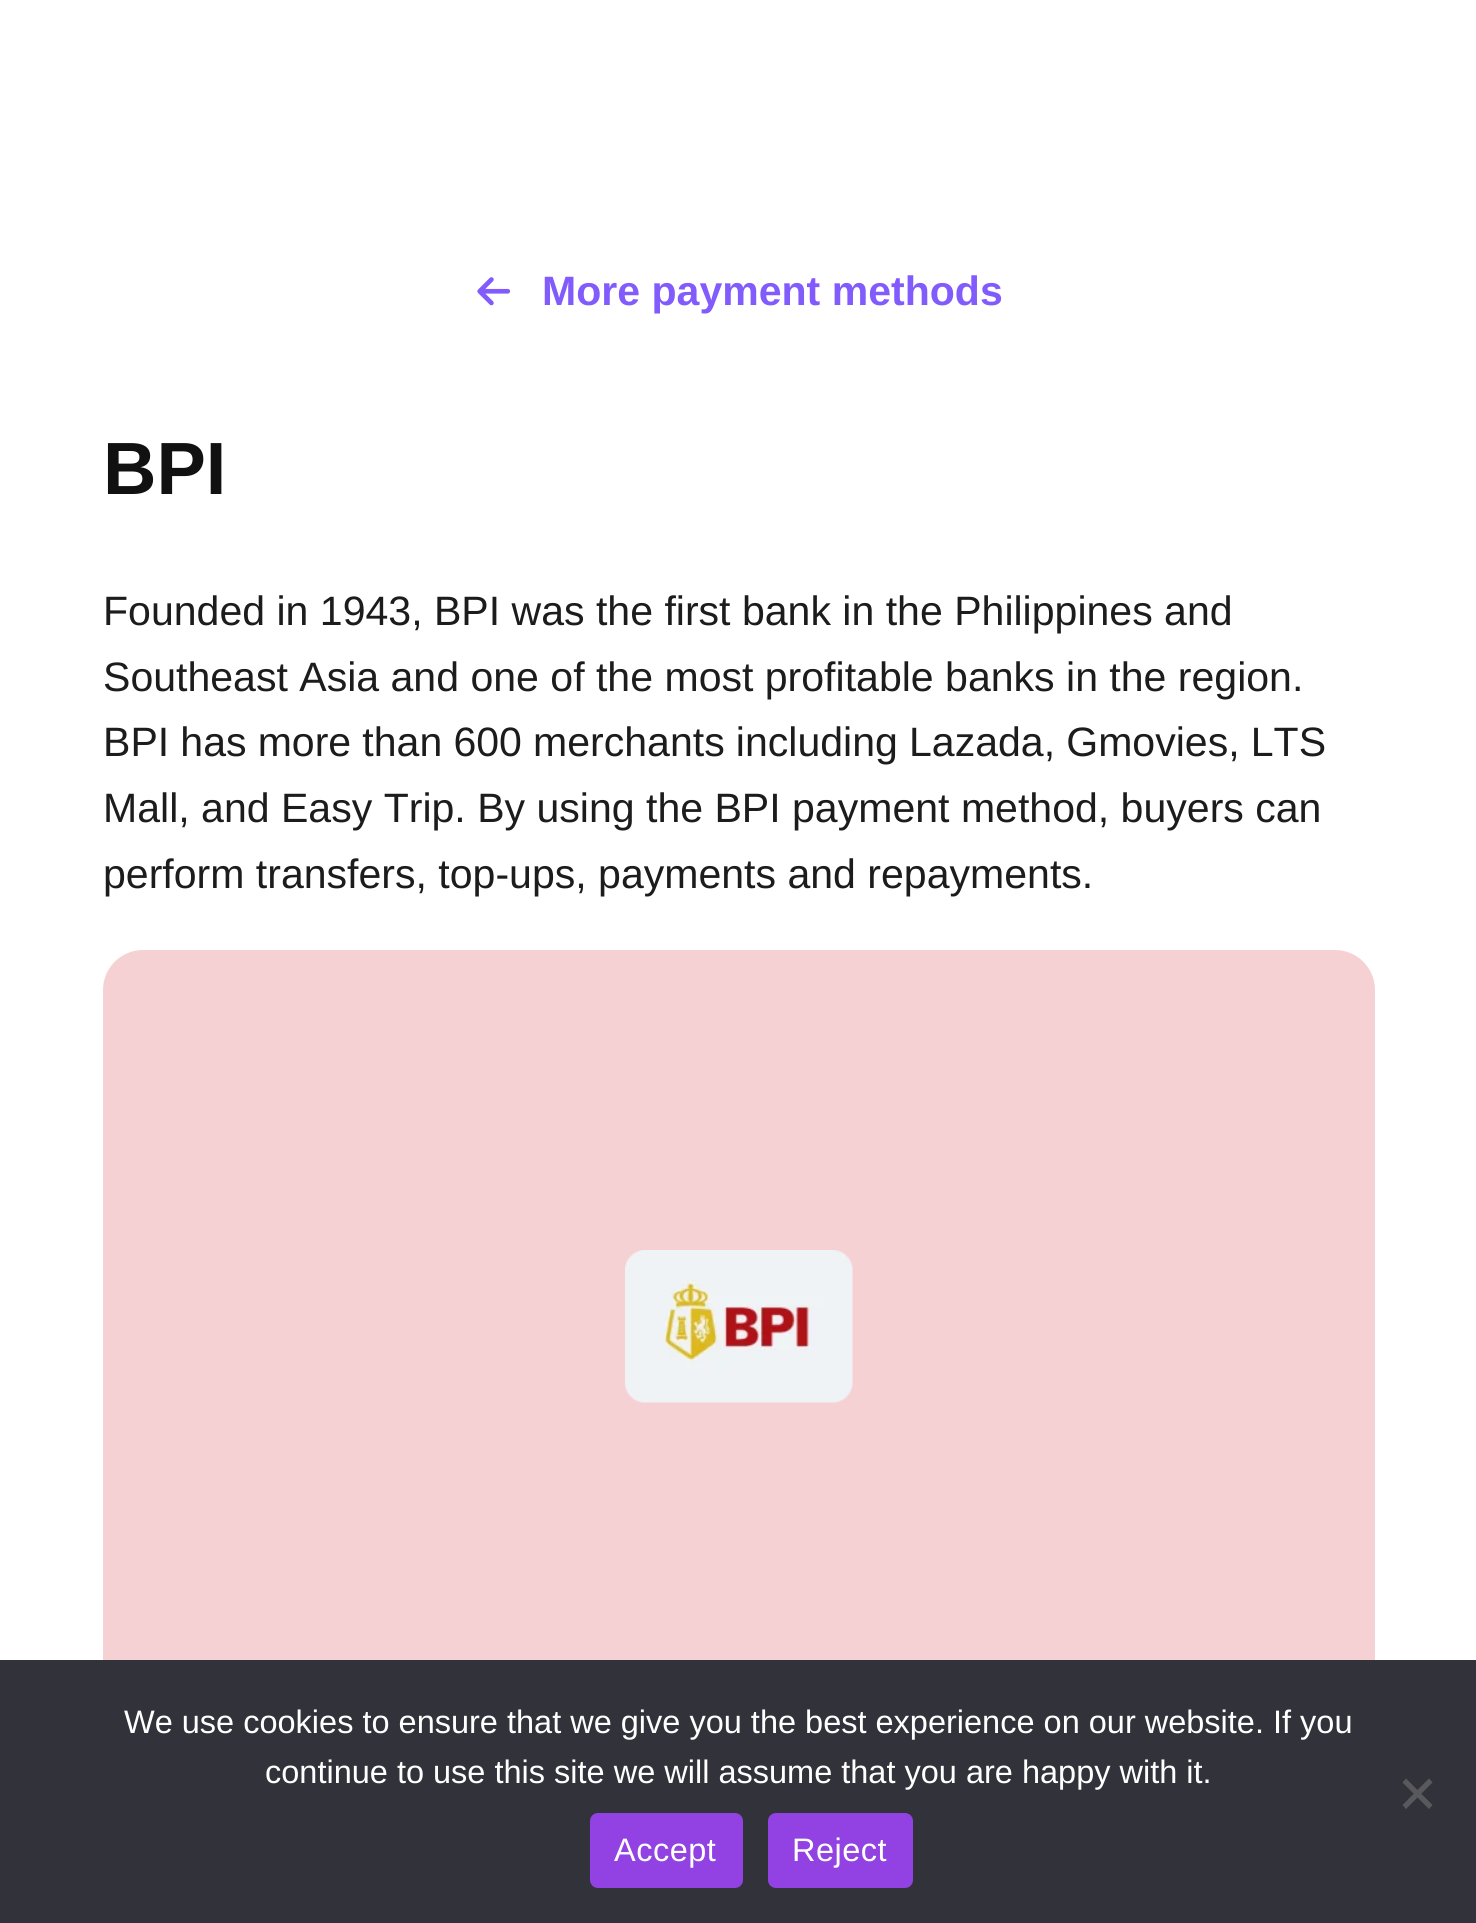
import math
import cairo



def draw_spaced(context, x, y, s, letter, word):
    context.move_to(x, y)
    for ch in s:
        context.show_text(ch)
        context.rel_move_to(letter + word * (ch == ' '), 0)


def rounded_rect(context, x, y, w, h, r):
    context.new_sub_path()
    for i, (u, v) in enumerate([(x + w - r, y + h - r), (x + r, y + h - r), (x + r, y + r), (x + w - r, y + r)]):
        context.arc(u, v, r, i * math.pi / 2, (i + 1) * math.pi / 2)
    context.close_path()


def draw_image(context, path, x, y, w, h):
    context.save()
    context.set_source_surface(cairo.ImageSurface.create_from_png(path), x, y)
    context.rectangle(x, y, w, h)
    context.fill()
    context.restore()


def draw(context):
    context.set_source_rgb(1, 1, 1)
    context.paint()
    draw_image(context, "images/1.png", 477, 277, 34, 29)
    context.set_source_rgb(245 / 255, 209 / 255, 212 / 255)
    rounded_rect(context, 103, 950, 1272, 753, 40)
    context.fill()
    draw_image(context, "images/2.png", 625, 1250, 228, 153)
    context.set_source_rgb(50 / 255, 50 / 255, 58 / 255)
    context.rectangle(0, 1660, 1476, 263)
    context.fill()
    context.set_source_rgb(89 / 255, 89 / 255, 93 / 255)
    context.new_path()
    context.move_to(1429, 1778.5)
    context.line_to(1432.5, 1782.5)
    context.line_to(1406, 1809)
    context.line_to(1402.5, 1805)
    context.close_path()
    context.fill()
    context.new_path()
    context.move_to(1402.5, 1782.5)
    context.line_to(1406, 1778.5)
    context.line_to(1432.5, 1805)
    context.line_to(1429, 1809)
    context.close_path()
    context.fill()
    context.set_source_rgb(146 / 255, 65 / 255, 226 / 255)
    rounded_rect(context, 590, 1813, 153, 75, 8)
    context.fill()
    rounded_rect(context, 768, 1813, 145, 75, 8)
    context.fill()
    context.select_font_face("Liberation Sans", cairo.FontSlant.NORMAL, cairo.FontWeight.BOLD)
    context.set_font_size(41.05)
    context.set_source_rgb(130 / 255, 91 / 255, 252 / 255)
    context.move_to(542, 305)
    context.show_text("More payment methods")
    context.set_font_size(74)
    context.set_source_rgb(17 / 255, 17 / 255, 17 / 255)
    context.move_to(103, 494)
    context.show_text("BPI")
    context.select_font_face("Liberation Sans")
    context.set_font_size(41.05)
    context.set_source_rgb(28 / 255, 28 / 255, 28 / 255)
    context.move_to(103, 625)
    context.show_text("Founded in 1943, BPI was the first bank in the Philippines and")
    context.move_to(103, 691)
    context.show_text("Southeast Asia and one of the most profitable banks in the region.")
    draw_spaced(context, 103, 756, "BPI has more than 600 merchants including Lazada, Gmovies, LTS", 0, -0.25)
    context.move_to(103, 822)
    context.show_text("Mall, and Easy Trip. By using the BPI payment method, buyers can")
    context.move_to(103, 888)
    context.show_text("perform transfers, top-ups, payments and repayments.")
    context.set_font_size(32.5)
    context.set_source_rgb(1, 1, 1)
    context.move_to(124, 1733)
    context.show_text("We use cookies to ensure that we give you the best experience on our website. If you")
    context.move_to(265, 1783)
    context.show_text("continue to use this site we will assume that you are happy with it.")
    draw_spaced(context, 614, 1861, "Accept", 0.5, 0)
    draw_spaced(context, 792, 1861, "Reject", 0.5, 0)


surface = cairo.ImageSurface(cairo.Format.RGB24, 1476, 1923)
context = cairo.Context(surface)
options = cairo.FontOptions()
options.set_hint_metrics(cairo.HintMetrics.OFF)
options.set_hint_style(cairo.HintStyle.NONE)
context.set_font_options(options)
context.set_miter_limit(4)
draw(context)
surface.write_to_png("out.png")
